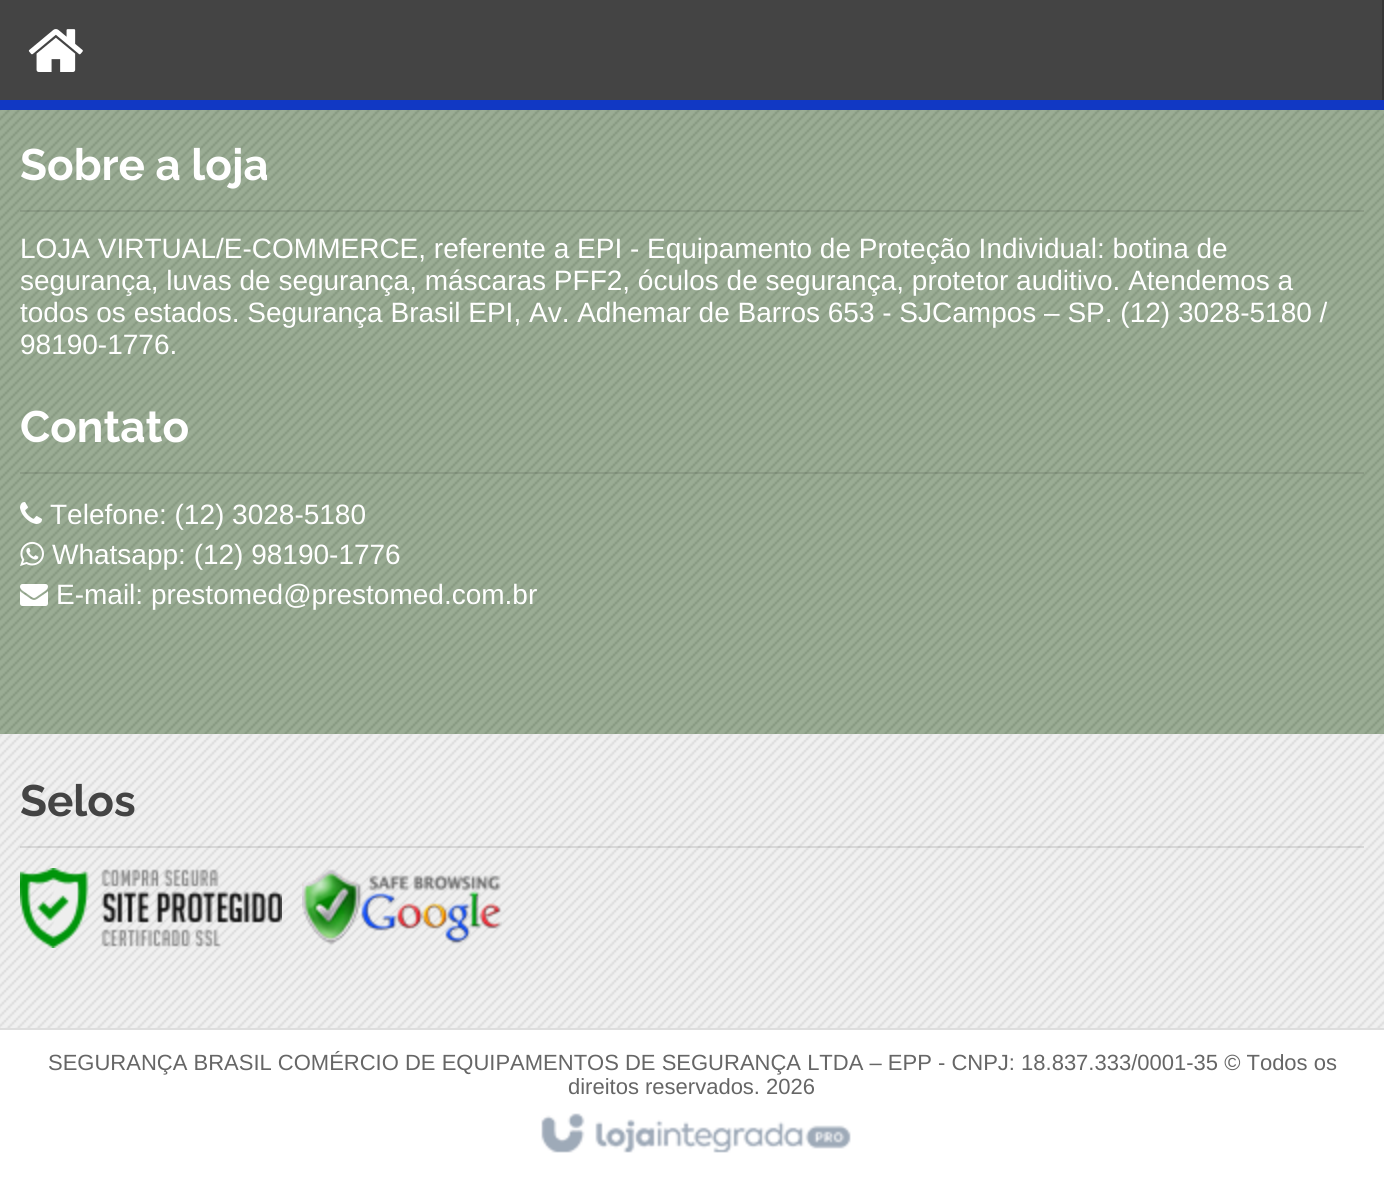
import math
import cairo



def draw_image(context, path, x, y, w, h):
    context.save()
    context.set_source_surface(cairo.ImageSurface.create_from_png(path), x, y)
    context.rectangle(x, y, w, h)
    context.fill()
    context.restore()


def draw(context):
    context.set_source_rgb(142 / 255, 163 / 255, 136 / 255)
    context.paint()
    context.set_source_rgb(68 / 255, 68 / 255, 68 / 255)
    context.rectangle(0, 0, 1382, 100)
    context.fill()
    context.set_source_rgb(17 / 255, 56 / 255, 196 / 255)
    context.rectangle(0, 100, 1384, 10)
    context.fill()
    draw_image(context, "images/1.png", 28, 29, 55, 43)
    context.set_source_rgb(54 / 255, 54 / 255, 54 / 255)
    context.rectangle(1382, 0, 2, 100)
    context.fill()
    draw_image(context, "images/2.png", 0, 110, 1384, 624)
    context.set_source_rgba(0, 0, 0, 0.1)
    context.rectangle(20, 210, 1344, 2)
    context.fill()
    context.rectangle(20, 472, 1344, 2)
    context.fill()
    draw_image(context, "images/3.png", 20, 502, 22, 22)
    draw_image(context, "images/4.png", 20, 541, 24, 25)
    draw_image(context, "images/5.png", 20, 584, 28, 22)
    context.set_source_rgb(238 / 255, 238 / 255, 238 / 255)
    context.rectangle(0, 734, 1384, 294)
    context.fill()
    draw_image(context, "images/6.png", 0, 734, 1384, 294)
    context.set_source_rgba(0, 0, 0, 0.1)
    context.rectangle(20, 846, 1344, 2)
    context.fill()
    draw_image(context, "images/7.png", 20, 868, 262, 80)
    draw_image(context, "images/8.png", 302, 869, 200, 76)
    context.set_source_rgb(1, 1, 1)
    context.rectangle(0, 1030, 1384, 157)
    context.fill()
    context.set_source_rgb(221 / 255, 221 / 255, 221 / 255)
    context.rectangle(0, 1028, 1384, 2)
    context.fill()
    draw_image(context, "images/9.png", 541, 1113, 310, 40)
    context.select_font_face("Raleway", cairo.FontSlant.NORMAL, cairo.FontWeight.BOLD)
    context.set_font_size(44)
    context.set_source_rgb(1, 1, 1)
    context.move_to(20, 180)
    context.show_text("Sobre a loja")
    context.select_font_face("Liberation Sans")
    context.set_font_size(28)
    context.move_to(20, 258)
    context.show_text("LOJA VIRTUAL/E-COMMERCE, referente a EPI - Equipamento de Proteção Individual: botina de")
    context.move_to(20, 290)
    context.show_text("segurança, luvas de segurança, máscaras PFF2, óculos de segurança, protetor auditivo. Atendemos a")
    context.move_to(20, 322)
    context.show_text("todos os estados. Segurança Brasil EPI, Av. Adhemar de Barros 653 - SJCampos – SP. (12) 3028-5180 /")
    context.move_to(20, 354)
    context.show_text("98190-1776.")
    context.select_font_face("Raleway", cairo.FontSlant.NORMAL, cairo.FontWeight.BOLD)
    context.set_font_size(44)
    context.move_to(20, 442)
    context.show_text("Contato")
    context.select_font_face("Liberation Sans")
    context.set_font_size(28)
    context.move_to(50, 524)
    context.show_text("Telefone: (12) 3028-5180")
    context.move_to(52, 564)
    context.show_text("Whatsapp: (12) 98190-1776")
    context.move_to(56, 604)
    context.show_text("E-mail: prestomed@prestomed.com.br")
    context.select_font_face("Raleway", cairo.FontSlant.NORMAL, cairo.FontWeight.BOLD)
    context.set_font_size(44)
    context.set_source_rgb(68 / 255, 68 / 255, 68 / 255)
    context.move_to(20, 816)
    context.show_text("Selos")
    context.select_font_face("Liberation Sans")
    context.set_font_size(22)
    context.set_source_rgb(102 / 255, 102 / 255, 102 / 255)
    context.move_to(48, 1070)
    context.show_text("SEGURANÇA BRASIL COMÉRCIO DE EQUIPAMENTOS DE SEGURANÇA LTDA – EPP - CNPJ: 18.837.333/0001-35 © Todos os")
    context.move_to(568, 1094)
    context.show_text("direitos reservados. 2026")


surface = cairo.ImageSurface(cairo.Format.RGB24, 1384, 1187)
context = cairo.Context(surface)
options = cairo.FontOptions()
options.set_hint_metrics(cairo.HintMetrics.OFF)
options.set_hint_style(cairo.HintStyle.NONE)
context.set_font_options(options)
context.set_miter_limit(4)
draw(context)
surface.write_to_png("out.png")
